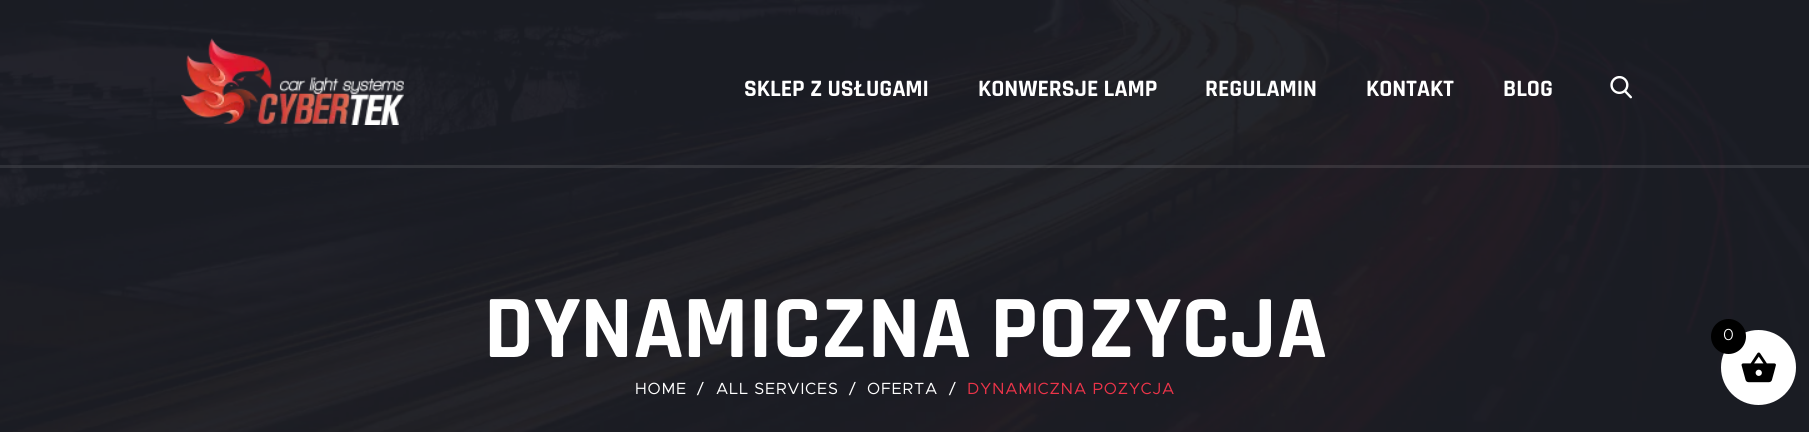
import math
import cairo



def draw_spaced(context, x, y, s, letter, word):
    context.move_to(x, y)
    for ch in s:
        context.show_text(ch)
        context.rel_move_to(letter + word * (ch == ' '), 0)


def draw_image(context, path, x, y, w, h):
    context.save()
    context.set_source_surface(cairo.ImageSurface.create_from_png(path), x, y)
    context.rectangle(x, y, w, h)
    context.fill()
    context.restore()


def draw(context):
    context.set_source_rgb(1, 1, 1)
    context.paint()
    draw_image(context, "images/1.png", 0, 0, 1809, 432)
    draw_image(context, "images/2.png", 181, 38, 223, 87)
    draw_image(context, "images/3.png", 1610, 76, 22, 23)
    context.set_source_rgba(1, 1, 1, 0.1)
    context.rectangle(0, 165, 1809, 3)
    context.fill()
    context.set_source_rgb(1, 1, 1)
    context.arc(1758.5, 367.5, 37.5, 0, 2 * math.pi)
    context.fill()
    draw_image(context, "images/4.png", 1741, 352, 35, 31)
    context.set_source_rgb(0, 0, 0)
    context.arc(1728.5, 336.5, 17.5, 0, 2 * math.pi)
    context.fill()
    context.select_font_face("Rajdhani", cairo.FontSlant.NORMAL, cairo.FontWeight.BOLD)
    context.set_font_size(23.75)
    context.set_source_rgb(1, 1, 1)
    context.move_to(744, 96)
    context.show_text("SKLEP Z USŁUGAMI")
    context.move_to(978, 96)
    context.show_text("KONWERSJE LAMP")
    context.move_to(1205, 96)
    context.show_text("REGULAMIN")
    context.move_to(1366, 96)
    context.show_text("KONTAKT")
    context.move_to(1503, 96)
    context.show_text("BLOG")
    context.set_font_size(90)
    context.move_to(484, 357)
    context.show_text("DYNAMICZNA POZYCJA")
    context.select_font_face("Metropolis")
    context.set_font_size(16.25)
    draw_spaced(context, 635, 394, "HOME", 0.8, 0)
    draw_spaced(context, 697, 394, "/", 0.8, 0)
    draw_spaced(context, 716, 394, "ALL SERVICES", 0.8, 0)
    draw_spaced(context, 849, 394, "/", 0.8, 0)
    draw_spaced(context, 867, 394, "OFERTA", 0.8, 0)
    draw_spaced(context, 949, 394, "/", 0.8, 0)
    context.set_source_rgb(236 / 255, 52 / 255, 73 / 255)
    draw_spaced(context, 967, 394, "DYNAMICZNA POZYCJA", 0.8, 0)
    context.select_font_face("Metropolis Light")
    context.set_font_size(16)
    context.set_source_rgb(1, 1, 1)
    context.move_to(1723, 340)
    context.show_text("0")


surface = cairo.ImageSurface(cairo.Format.RGB24, 1809, 432)
context = cairo.Context(surface)
options = cairo.FontOptions()
options.set_hint_metrics(cairo.HintMetrics.OFF)
options.set_hint_style(cairo.HintStyle.NONE)
context.set_font_options(options)
context.set_miter_limit(4)
draw(context)
surface.write_to_png("out.png")
